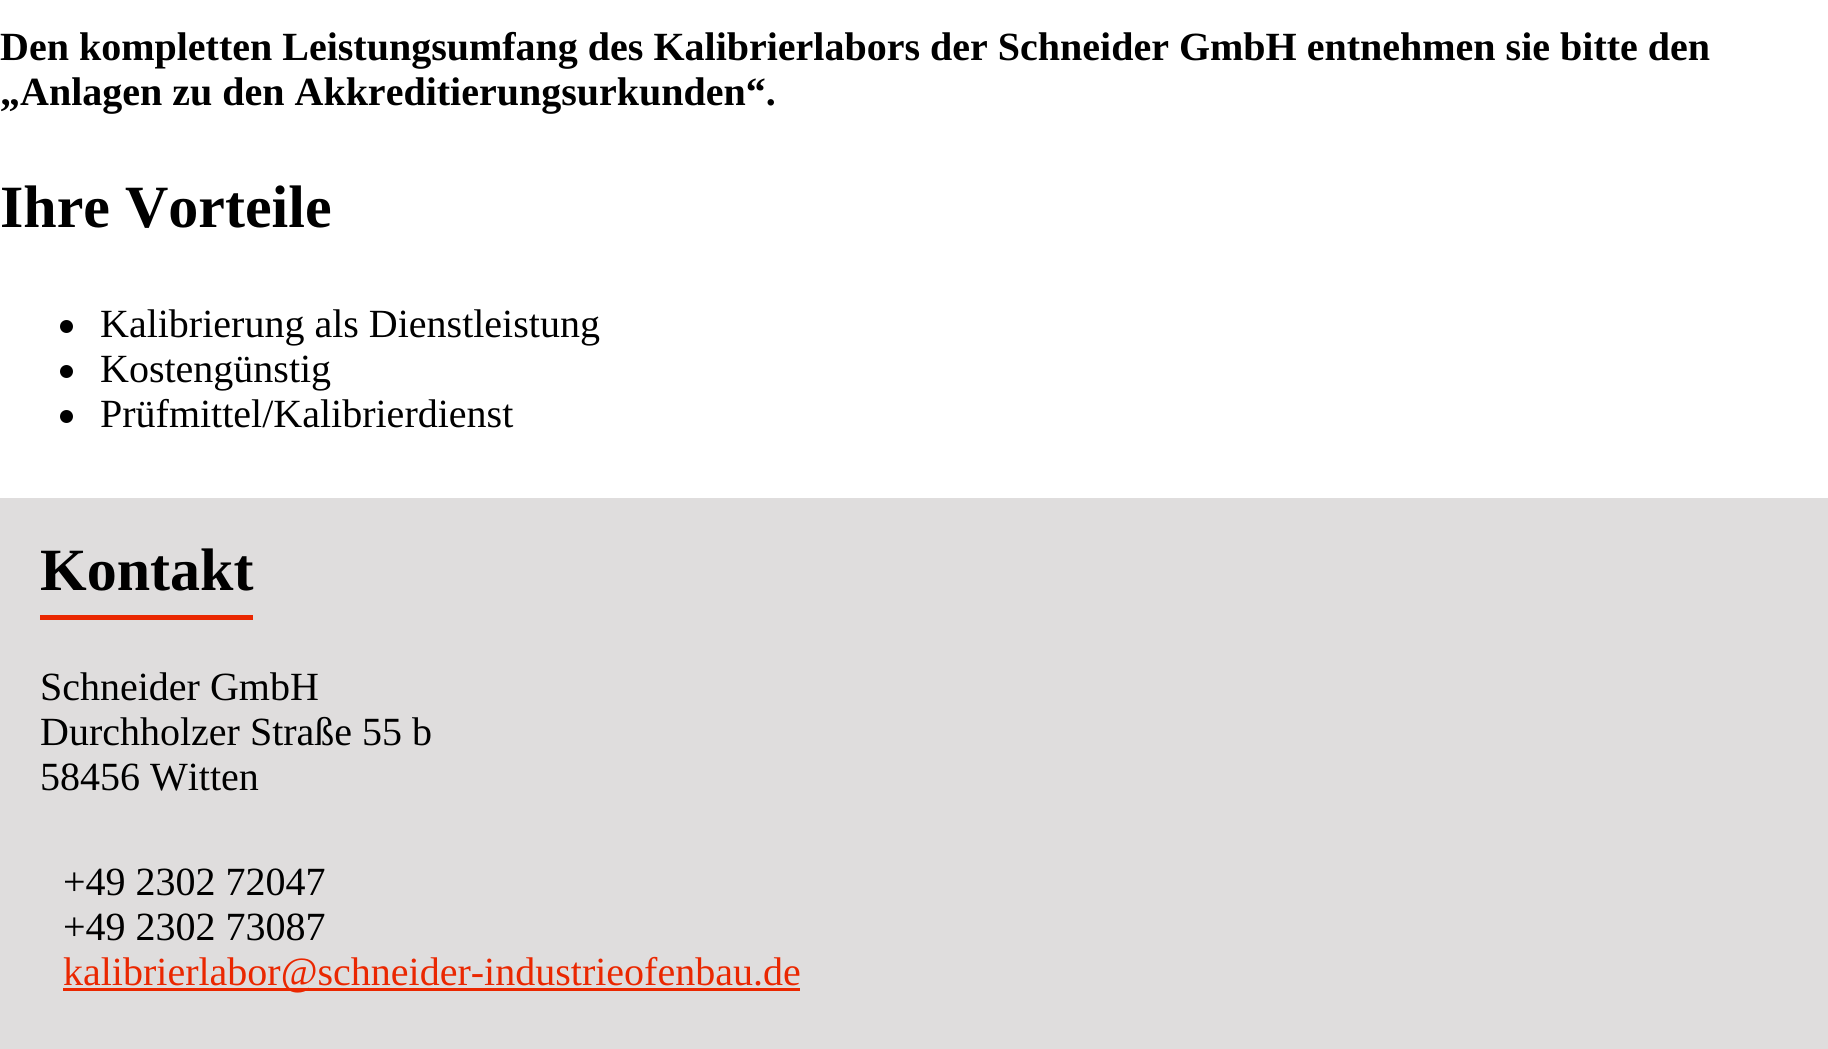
import math
import cairo



def draw(context):
    context.set_source_rgb(1, 1, 1)
    context.paint()
    context.set_source_rgb(0, 0, 0)
    context.arc(66.5, 326.5, 6.5, 0, 2 * math.pi)
    context.fill()
    context.arc(66.5, 371.5, 6.5, 0, 2 * math.pi)
    context.fill()
    context.arc(66.5, 416.5, 6.5, 0, 2 * math.pi)
    context.fill()
    context.set_source_rgb(223 / 255, 221 / 255, 221 / 255)
    context.rectangle(0, 498, 1828, 551)
    context.fill()
    context.set_source_rgb(234 / 255, 39 / 255, 0)
    context.rectangle(40, 615, 213, 5)
    context.fill()
    context.rectangle(63, 988, 737, 3)
    context.fill()
    context.select_font_face("Liberation Serif", cairo.FontSlant.NORMAL, cairo.FontWeight.BOLD)
    context.set_font_size(40)
    context.set_source_rgb(0, 0, 0)
    context.move_to(0, 60)
    context.show_text("Den kompletten Leistungsumfang des Kalibrierlabors der Schneider GmbH entnehmen sie bitte den")
    context.move_to(0, 105)
    context.show_text("„Anlagen zu den Akkreditierungsurkunden“.")
    context.set_font_size(60)
    context.move_to(0, 227)
    context.show_text("Ihre Vorteile")
    context.select_font_face("Liberation Serif")
    context.set_font_size(40)
    context.move_to(100, 337)
    context.show_text("Kalibrierung als Dienstleistung")
    context.move_to(100, 382)
    context.show_text("Kostengünstig")
    context.move_to(100, 427)
    context.show_text("Prüfmittel/Kalibrierdienst")
    context.select_font_face("Liberation Serif", cairo.FontSlant.NORMAL, cairo.FontWeight.BOLD)
    context.set_font_size(60)
    context.move_to(40, 590)
    context.show_text("Kontakt")
    context.select_font_face("Liberation Serif")
    context.set_font_size(40)
    context.move_to(40, 700)
    context.show_text("Schneider GmbH")
    context.move_to(40, 745)
    context.show_text("Durchholzer Straße 55 b")
    context.move_to(40, 790)
    context.show_text("58456 Witten")
    context.move_to(63, 895)
    context.show_text("+49 2302 72047")
    context.move_to(63, 940)
    context.show_text("+49 2302 73087")
    context.set_source_rgb(234 / 255, 39 / 255, 0)
    context.move_to(63, 985)
    context.show_text("kalibrierlabor@schneider-industrieofenbau.de")


surface = cairo.ImageSurface(cairo.Format.RGB24, 1828, 1049)
context = cairo.Context(surface)
options = cairo.FontOptions()
options.set_hint_metrics(cairo.HintMetrics.OFF)
options.set_hint_style(cairo.HintStyle.NONE)
context.set_font_options(options)
context.set_miter_limit(4)
draw(context)
surface.write_to_png("out.png")
